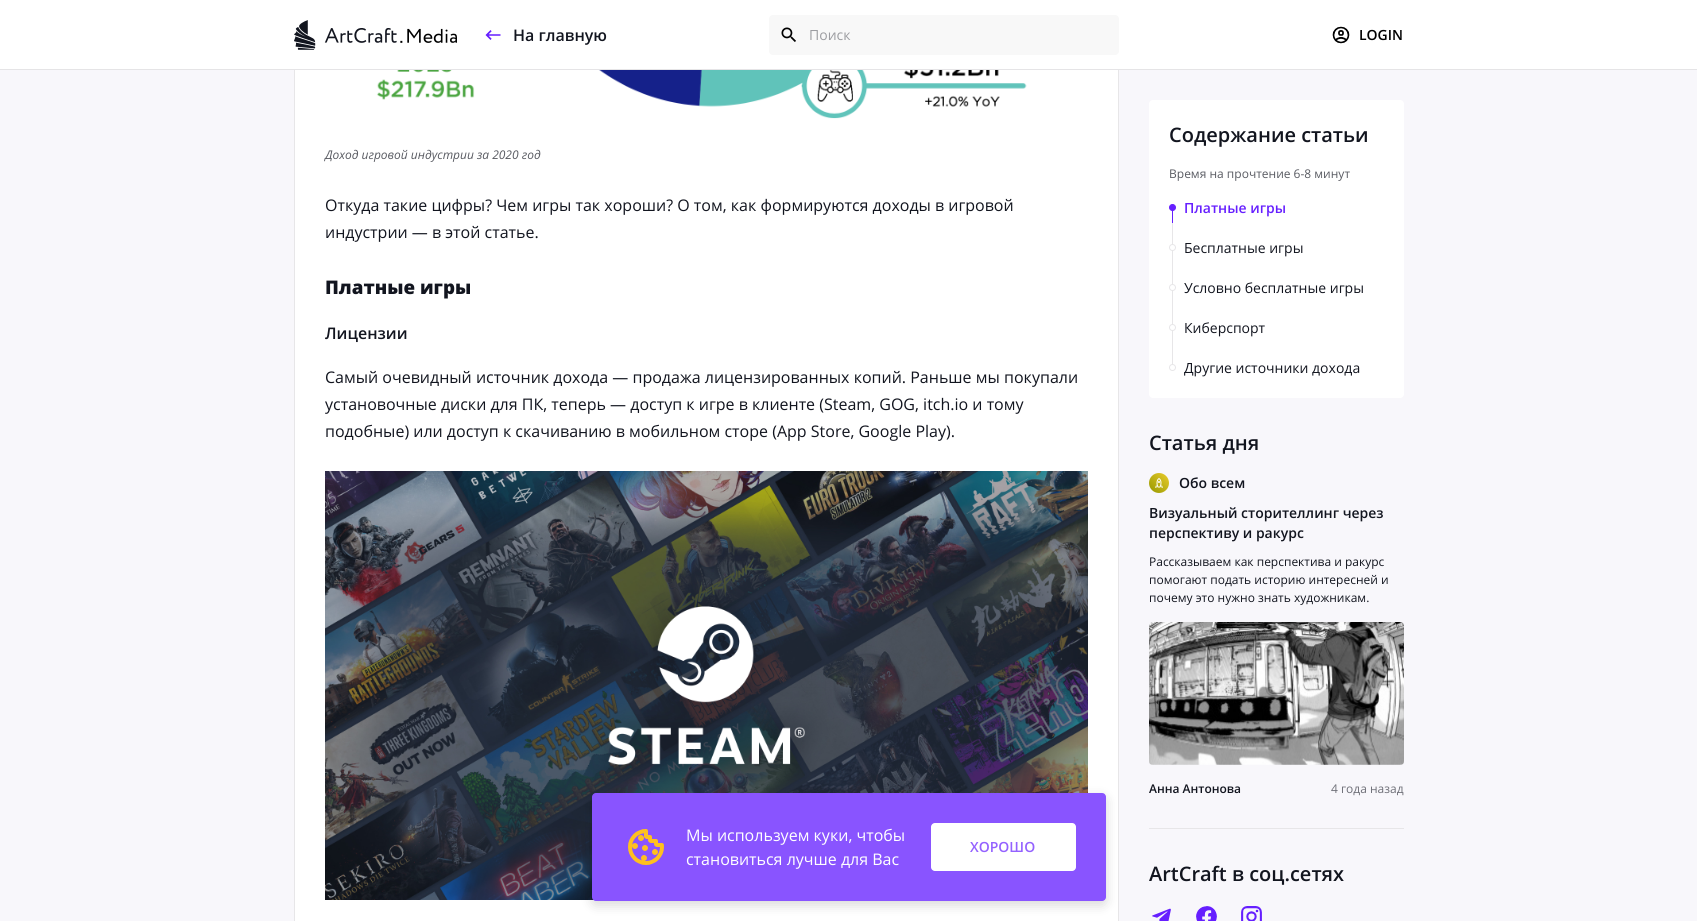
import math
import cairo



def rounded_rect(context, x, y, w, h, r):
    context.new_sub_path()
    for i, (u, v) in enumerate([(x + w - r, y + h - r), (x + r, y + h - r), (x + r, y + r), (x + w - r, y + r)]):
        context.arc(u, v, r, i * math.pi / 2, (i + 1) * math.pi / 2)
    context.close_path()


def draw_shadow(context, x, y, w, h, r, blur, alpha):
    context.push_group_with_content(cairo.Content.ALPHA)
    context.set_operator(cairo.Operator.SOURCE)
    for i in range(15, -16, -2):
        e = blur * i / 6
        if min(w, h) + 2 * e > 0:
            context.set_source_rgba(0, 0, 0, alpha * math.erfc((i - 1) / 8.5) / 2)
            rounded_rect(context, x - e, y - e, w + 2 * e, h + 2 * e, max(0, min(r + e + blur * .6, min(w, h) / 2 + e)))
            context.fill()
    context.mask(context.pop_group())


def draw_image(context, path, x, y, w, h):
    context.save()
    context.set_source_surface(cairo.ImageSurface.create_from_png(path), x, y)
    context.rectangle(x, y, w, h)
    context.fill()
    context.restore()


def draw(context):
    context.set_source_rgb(248 / 255, 247 / 255, 251 / 255)
    context.paint()
    context.set_source_rgb(1, 1, 1)
    context.rectangle(295, 70, 823, 851)
    context.fill()
    context.rectangle(294.5, -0.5, 824, 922)
    context.set_source_rgb(231 / 255, 230 / 255, 232 / 255)
    context.set_line_width(1)
    context.stroke()
    context.set_source_rgb(1, 1, 1)
    context.rectangle(0, 0, 1697, 69)
    context.fill()
    context.set_source_rgb(229 / 255, 228 / 255, 230 / 255)
    context.rectangle(0, 69, 1697, 1)
    context.fill()
    draw_image(context, "images/1.png", 294, 20, 163, 30)
    draw_image(context, "images/2.png", 485, 30, 16, 10)
    context.set_source_rgb(248 / 255, 248 / 255, 248 / 255)
    rounded_rect(context, 769, 15, 350, 40, 4)
    context.fill()
    draw_image(context, "images/3.png", 781, 27, 15, 15)
    draw_image(context, "images/4.png", 1332, 26, 18, 18)
    draw_image(context, "images/5.png", 369, 70, 683, 49)
    draw_image(context, "images/6.png", 325, 471, 763, 429)
    context.set_source_rgb(1, 1, 1)
    rounded_rect(context, 1149, 100, 255, 298, 4)
    context.fill()
    context.set_source_rgb(102 / 255, 31 / 255, 1)
    context.rectangle(1172, 205, 1, 18)
    context.fill()
    context.arc(1172.5, 207.5, 3, 0, 2 * math.pi)
    context.fill_preserve()
    context.stroke()
    context.set_source_rgb(231 / 255, 230 / 255, 232 / 255)
    context.rectangle(1172, 223, 1, 142)
    context.fill()
    context.set_source_rgb(1, 1, 1)
    context.arc(1172.5, 247.5, 3, 0, 2 * math.pi)
    context.fill_preserve()
    context.set_source_rgb(231 / 255, 230 / 255, 232 / 255)
    context.stroke()
    context.set_source_rgb(1, 1, 1)
    context.arc(1172.5, 287.5, 3, 0, 2 * math.pi)
    context.fill_preserve()
    context.set_source_rgb(231 / 255, 230 / 255, 232 / 255)
    context.stroke()
    context.set_source_rgb(1, 1, 1)
    context.arc(1172.5, 327.5, 3, 0, 2 * math.pi)
    context.fill_preserve()
    context.set_source_rgb(231 / 255, 230 / 255, 232 / 255)
    context.stroke()
    context.set_source_rgb(1, 1, 1)
    context.arc(1172.5, 367.5, 3, 0, 2 * math.pi)
    context.fill_preserve()
    context.set_source_rgb(231 / 255, 230 / 255, 232 / 255)
    context.stroke()
    context.rectangle(1149, 828, 255, 1)
    context.fill()
    draw_image(context, "images/7.png", 1149, 473, 20, 20)
    draw_image(context, "images/8.png", 1149, 622, 255, 143)
    draw_image(context, "images/9.png", 1152, 908, 19, 13)
    draw_image(context, "images/10.png", 1196, 906, 21, 15)
    draw_image(context, "images/11.png", 1241, 906, 21, 15)
    context.set_source_rgb(0, 0, 0)
    draw_shadow(context, 592, 797, 514, 108, 4, 6, 0.15)
    context.set_source_rgb(137 / 255, 84 / 255, 1)
    rounded_rect(context, 592, 793, 514, 108, 4)
    context.fill()
    draw_image(context, "images/12.png", 628, 829, 36, 36)
    context.set_source_rgb(1, 1, 1)
    rounded_rect(context, 931, 823, 145, 48, 4)
    context.fill()
    context.select_font_face("Open Sans SemiBold")
    context.set_font_size(16)
    context.set_source_rgb(18 / 255, 21 / 255, 31 / 255)
    context.move_to(513, 41)
    context.show_text("На главную")
    context.select_font_face("Open Sans")
    context.set_font_size(14)
    context.set_source_rgb(156 / 255, 157 / 255, 161 / 255)
    context.move_to(809, 40)
    context.show_text("Поиск")
    context.select_font_face("Open Sans SemiBold")
    context.set_source_rgb(0, 0, 0)
    context.move_to(1359, 40)
    context.show_text("LOGIN")
    context.select_font_face("Open Sans", cairo.FontSlant.ITALIC)
    context.set_font_size(12)
    context.set_source_rgb(89 / 255, 91 / 255, 98 / 255)
    context.move_to(325, 159)
    context.show_text("Доход игровой индустрии за 2020 год")
    context.select_font_face("Open Sans")
    context.set_font_size(16)
    context.set_source_rgb(18 / 255, 21 / 255, 31 / 255)
    context.move_to(325, 211)
    context.show_text("Откуда такие цифры? Чем игры так хороши? О том, как формируются доходы в игровой")
    context.move_to(325, 238)
    context.show_text("индустрии — в этой статье.")
    context.select_font_face("Open Sans ExtraBold")
    context.set_font_size(18.75)
    context.move_to(325, 294)
    context.show_text("Платные игры")
    context.select_font_face("Open Sans SemiBold")
    context.set_font_size(16)
    context.move_to(325, 339)
    context.show_text("Лицензии")
    context.select_font_face("Open Sans")
    context.move_to(325, 383)
    context.show_text("Самый очевидный источник дохода — продажа лицензированных копий. Раньше мы покупали")
    context.move_to(325, 410)
    context.show_text("установочные диски для ПК, теперь — доступ к игре в клиенте (Steam, GOG, itch.io и тому")
    context.move_to(325, 437)
    context.show_text("подобные) или доступ к скачиванию в мобильном сторе (App Store, Google Play).")
    context.select_font_face("Open Sans SemiBold")
    context.set_font_size(20)
    context.move_to(1169, 142)
    context.show_text("Содержание статьи")
    context.select_font_face("Open Sans")
    context.set_font_size(12)
    context.set_source_rgb(89 / 255, 91 / 255, 98 / 255)
    context.move_to(1169, 178)
    context.show_text("Время на прочтение 6-8 минут")
    context.select_font_face("Open Sans SemiBold")
    context.set_font_size(14)
    context.set_source_rgb(102 / 255, 31 / 255, 1)
    context.move_to(1184, 213)
    context.show_text("Платные игры")
    context.select_font_face("Open Sans")
    context.set_source_rgb(18 / 255, 21 / 255, 31 / 255)
    context.move_to(1184, 253)
    context.show_text("Бесплатные игры")
    context.move_to(1184, 293)
    context.show_text("Условно бесплатные игры")
    context.move_to(1184, 333)
    context.show_text("Киберспорт")
    context.move_to(1184, 373)
    context.show_text("Другие источники дохода")
    context.select_font_face("Open Sans SemiBold")
    context.set_font_size(20)
    context.move_to(1149, 450)
    context.show_text("Статья дня")
    context.set_font_size(14)
    context.move_to(1179, 488)
    context.show_text("Обо всем")
    context.move_to(1149, 518)
    context.show_text("Визуальный сторителлинг через")
    context.move_to(1149, 538)
    context.show_text("перспективу и ракурс")
    context.select_font_face("Open Sans")
    context.set_font_size(12)
    context.move_to(1149, 566)
    context.show_text("Рассказываем как перспектива и ракурс")
    context.move_to(1149, 584)
    context.show_text("помогают подать историю интересней и")
    context.move_to(1149, 602)
    context.show_text("почему это нужно знать художникам.")
    context.select_font_face("Open Sans SemiBold")
    context.move_to(1149, 793)
    context.show_text("Анна Антонова")
    context.select_font_face("Open Sans")
    context.set_source_rgb(110 / 255, 111 / 255, 119 / 255)
    context.move_to(1331, 793)
    context.show_text("4 года назад")
    context.select_font_face("Open Sans SemiBold")
    context.set_font_size(20)
    context.set_source_rgb(18 / 255, 21 / 255, 31 / 255)
    context.move_to(1149, 881)
    context.show_text("ArtCraft в соц.сетях")
    context.select_font_face("Open Sans")
    context.set_font_size(16)
    context.set_source_rgb(1, 1, 1)
    context.move_to(686, 841)
    context.show_text("Мы используем куки, чтобы")
    context.move_to(686, 865)
    context.show_text("становиться лучше для Вас")
    context.select_font_face("Open Sans SemiBold")
    context.set_font_size(14)
    context.set_source_rgb(148 / 255, 98 / 255, 1)
    context.move_to(970, 852)
    context.show_text("ХОРОШО")


surface = cairo.ImageSurface(cairo.Format.RGB24, 1697, 921)
context = cairo.Context(surface)
options = cairo.FontOptions()
options.set_hint_metrics(cairo.HintMetrics.OFF)
options.set_hint_style(cairo.HintStyle.NONE)
context.set_font_options(options)
context.set_miter_limit(4)
draw(context)
surface.write_to_png("out.png")
